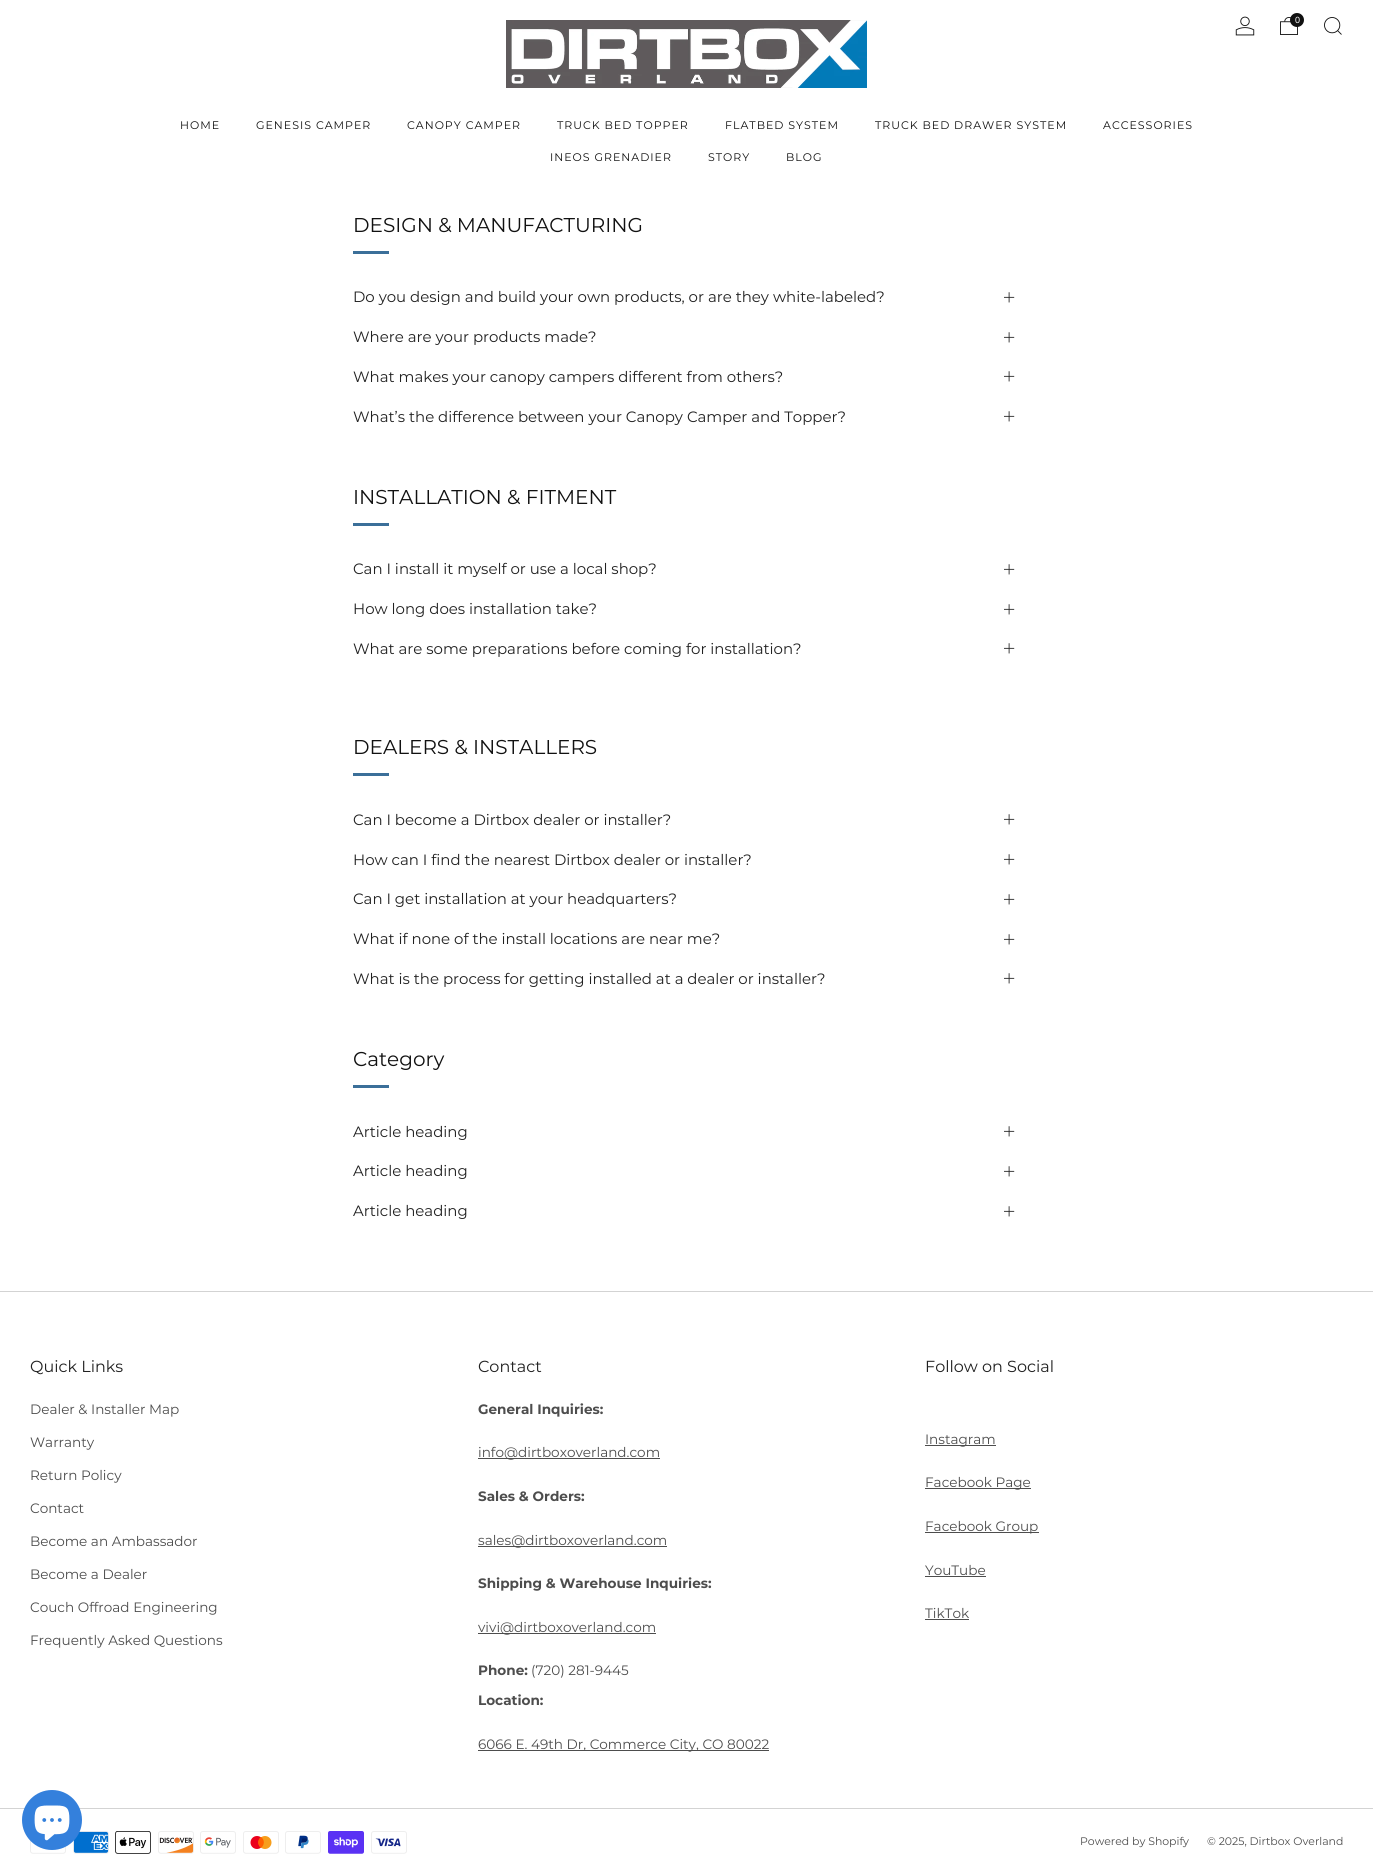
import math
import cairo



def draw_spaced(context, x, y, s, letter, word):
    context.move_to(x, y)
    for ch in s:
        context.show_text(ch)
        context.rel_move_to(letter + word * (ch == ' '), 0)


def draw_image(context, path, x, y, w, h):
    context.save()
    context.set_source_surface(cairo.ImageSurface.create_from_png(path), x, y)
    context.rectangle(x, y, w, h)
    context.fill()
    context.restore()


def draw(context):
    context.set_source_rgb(1, 1, 1)
    context.paint()
    draw_image(context, "images/1.png", 1235, 16, 20, 20)
    draw_image(context, "images/2.png", 1280, 17, 18, 18)
    context.set_source_rgb(17 / 255, 17 / 255, 17 / 255)
    context.arc(1297, 20, 7, 0, 2 * math.pi)
    context.fill()
    draw_image(context, "images/3.png", 1324, 17, 18, 18)
    draw_image(context, "images/4.png", 506, 20, 361, 68)
    context.set_source_rgb(59 / 255, 111 / 255, 153 / 255)
    context.rectangle(353, 251, 36, 3)
    context.fill()
    draw_image(context, "images/5.png", 1004, 292, 11, 11)
    draw_image(context, "images/5.png", 1004, 332, 11, 11)
    draw_image(context, "images/5.png", 1004, 371, 11, 11)
    draw_image(context, "images/5.png", 1004, 411, 11, 11)
    context.rectangle(353, 523, 36, 3)
    context.fill()
    draw_image(context, "images/5.png", 1004, 564, 11, 11)
    draw_image(context, "images/5.png", 1004, 604, 11, 11)
    draw_image(context, "images/5.png", 1004, 643, 11, 11)
    context.rectangle(353, 773, 36, 3)
    context.fill()
    draw_image(context, "images/5.png", 1004, 814, 11, 11)
    draw_image(context, "images/5.png", 1004, 854, 11, 11)
    draw_image(context, "images/5.png", 1004, 894, 11, 11)
    draw_image(context, "images/5.png", 1004, 934, 11, 11)
    draw_image(context, "images/5.png", 1004, 973, 11, 11)
    context.rectangle(353, 1085, 36, 3)
    context.fill()
    draw_image(context, "images/5.png", 1004, 1126, 11, 11)
    draw_image(context, "images/5.png", 1004, 1166, 11, 11)
    draw_image(context, "images/5.png", 1004, 1206, 11, 11)
    context.set_source_rgb(211 / 255, 211 / 255, 211 / 255)
    context.rectangle(0, 1291, 1373, 1)
    context.fill()
    context.set_source_rgb(77 / 255, 77 / 255, 77 / 255)
    context.rectangle(478, 1458, 182, 1)
    context.fill()
    context.rectangle(478, 1546, 189, 1)
    context.fill()
    context.rectangle(478, 1633, 178, 1)
    context.fill()
    context.rectangle(478, 1750, 291, 1)
    context.fill()
    context.rectangle(925, 1445, 71, 1)
    context.fill()
    context.rectangle(925, 1488, 106, 1)
    context.fill()
    context.rectangle(925, 1532, 114, 1)
    context.fill()
    context.rectangle(925, 1576, 61, 1)
    context.fill()
    context.rectangle(925, 1619, 44, 1)
    context.fill()
    context.set_source_rgb(211 / 255, 211 / 255, 211 / 255)
    context.rectangle(0, 1808, 1373, 1)
    context.fill()
    draw_image(context, "images/6.png", 30, 1840, 36, 14)
    draw_image(context, "images/7.png", 73, 1831, 36, 23)
    draw_image(context, "images/8.png", 115, 1831, 36, 23)
    draw_image(context, "images/9.png", 158, 1831, 36, 23)
    draw_image(context, "images/10.png", 200, 1831, 36, 23)
    draw_image(context, "images/11.png", 243, 1831, 36, 23)
    draw_image(context, "images/12.png", 285, 1831, 36, 23)
    draw_image(context, "images/13.png", 328, 1831, 36, 23)
    draw_image(context, "images/14.png", 371, 1831, 36, 23)
    context.set_source_rgb(52 / 255, 128 / 255, 220 / 255)
    context.arc(52, 1820, 30, 0, 2 * math.pi)
    context.fill()
    draw_image(context, "images/15.png", 34, 1805, 36, 36)
    context.select_font_face("Liberation Sans")
    context.set_font_size(9)
    context.set_source_rgb(1, 1, 1)
    context.move_to(1295, 23)
    context.show_text("0")
    context.select_font_face("Montserrat")
    context.set_font_size(11)
    context.set_source_rgb(17 / 255, 17 / 255, 17 / 255)
    draw_spaced(context, 180, 129, "HOME", 1, 0)
    draw_spaced(context, 256, 129, "GENESIS CAMPER", 1, 0)
    draw_spaced(context, 407, 129, "CANOPY CAMPER", 1, 0)
    draw_spaced(context, 557, 129, "TRUCK BED TOPPER", 1, 0)
    draw_spaced(context, 725, 129, "FLATBED SYSTEM", 1, 0)
    draw_spaced(context, 875, 129, "TRUCK BED DRAWER SYSTEM", 1, 0)
    draw_spaced(context, 1103, 129, "ACCESSORIES", 1, 0)
    draw_spaced(context, 550, 161, "INEOS GRENADIER", 1, 0)
    draw_spaced(context, 708, 161, "STORY", 1, 0)
    draw_spaced(context, 786, 161, "BLOG", 1, 0)
    context.set_font_size(20)
    context.move_to(353, 232)
    context.show_text("DESIGN & MANUFACTURING")
    context.set_font_size(14.95)
    context.set_source_rgb(33 / 255, 33 / 255, 33 / 255)
    context.move_to(353, 302)
    context.show_text("Do you design and build your own products, or are they white-labeled?")
    context.move_to(353, 342)
    context.show_text("Where are your products made?")
    context.move_to(353, 382)
    context.show_text("What makes your canopy campers different from others?")
    context.move_to(353, 422)
    context.show_text("What’s the difference between your Canopy Camper and Topper?")
    context.set_font_size(20)
    context.set_source_rgb(17 / 255, 17 / 255, 17 / 255)
    context.move_to(353, 504)
    context.show_text("INSTALLATION & FITMENT")
    context.set_font_size(14.95)
    context.set_source_rgb(33 / 255, 33 / 255, 33 / 255)
    context.move_to(353, 574)
    context.show_text("Can I install it myself or use a local shop?")
    context.move_to(353, 614)
    context.show_text("How long does installation take?")
    context.move_to(353, 654)
    context.show_text("What are some preparations before coming for installation?")
    context.set_font_size(20)
    context.set_source_rgb(17 / 255, 17 / 255, 17 / 255)
    context.move_to(353, 754)
    context.show_text("DEALERS & INSTALLERS")
    context.set_font_size(14.95)
    context.set_source_rgb(33 / 255, 33 / 255, 33 / 255)
    context.move_to(353, 825)
    context.show_text("Can I become a Dirtbox dealer or installer?")
    context.move_to(353, 865)
    context.show_text("How can I find the nearest Dirtbox dealer or installer?")
    context.move_to(353, 904)
    context.show_text("Can I get installation at your headquarters?")
    context.move_to(353, 944)
    context.show_text("What if none of the install locations are near me?")
    context.move_to(353, 984)
    context.show_text("What is the process for getting installed at a dealer or installer?")
    context.set_font_size(20)
    context.set_source_rgb(17 / 255, 17 / 255, 17 / 255)
    context.move_to(353, 1066)
    context.show_text("Category")
    context.set_font_size(14.95)
    context.set_source_rgb(33 / 255, 33 / 255, 33 / 255)
    context.move_to(353, 1137)
    context.show_text("Article heading")
    context.move_to(353, 1176)
    context.show_text("Article heading")
    context.move_to(353, 1216)
    context.show_text("Article heading")
    context.set_font_size(16)
    context.move_to(30, 1372)
    context.show_text("Quick Links")
    context.set_font_size(13.6)
    context.set_source_rgb(77 / 255, 77 / 255, 77 / 255)
    context.move_to(30, 1414)
    context.show_text("Dealer & Installer Map")
    context.move_to(30, 1447)
    context.show_text("Warranty")
    context.move_to(30, 1480)
    context.show_text("Return Policy")
    context.move_to(30, 1513)
    context.show_text("Contact")
    context.move_to(30, 1546)
    context.show_text("Become an Ambassador")
    context.move_to(30, 1579)
    context.show_text("Become a Dealer")
    context.move_to(30, 1612)
    context.show_text("Couch Offroad Engineering")
    context.move_to(30, 1645)
    context.show_text("Frequently Asked Questions")
    context.set_font_size(16)
    context.set_source_rgb(33 / 255, 33 / 255, 33 / 255)
    context.move_to(478, 1372)
    context.show_text("Contact")
    context.select_font_face("Montserrat", cairo.FontSlant.NORMAL, cairo.FontWeight.BOLD)
    context.set_font_size(13.6)
    context.set_source_rgb(77 / 255, 77 / 255, 77 / 255)
    context.move_to(478, 1414)
    context.show_text("General Inquiries:")
    context.select_font_face("Montserrat")
    context.move_to(478, 1457)
    context.show_text("info@dirtboxoverland.com")
    context.select_font_face("Montserrat", cairo.FontSlant.NORMAL, cairo.FontWeight.BOLD)
    context.move_to(478, 1501)
    context.show_text("Sales & Orders:")
    context.select_font_face("Montserrat")
    context.move_to(478, 1545)
    context.show_text("sales@dirtboxoverland.com")
    context.select_font_face("Montserrat", cairo.FontSlant.NORMAL, cairo.FontWeight.BOLD)
    context.move_to(478, 1588)
    context.show_text("Shipping & Warehouse Inquiries:")
    context.select_font_face("Montserrat")
    context.move_to(478, 1632)
    context.show_text("vivi@dirtboxoverland.com")
    context.select_font_face("Montserrat", cairo.FontSlant.NORMAL, cairo.FontWeight.BOLD)
    context.move_to(478, 1675)
    context.show_text("Phone:")
    context.select_font_face("Montserrat")
    context.move_to(531, 1675)
    context.show_text("(720) 281-9445")
    context.select_font_face("Montserrat", cairo.FontSlant.NORMAL, cairo.FontWeight.BOLD)
    context.move_to(478, 1705)
    context.show_text("Location:")
    context.select_font_face("Montserrat")
    context.move_to(478, 1749)
    context.show_text("6066 E. 49th Dr, Commerce City, CO 80022")
    context.set_font_size(16)
    context.set_source_rgb(33 / 255, 33 / 255, 33 / 255)
    context.move_to(925, 1372)
    context.show_text("Follow on Social")
    context.set_font_size(13.6)
    context.set_source_rgb(77 / 255, 77 / 255, 77 / 255)
    context.move_to(925, 1444)
    context.show_text("Instagram")
    context.move_to(925, 1487)
    context.show_text("Facebook Page")
    context.move_to(925, 1531)
    context.show_text("Facebook Group")
    context.move_to(925, 1575)
    context.show_text("YouTube")
    context.move_to(925, 1618)
    context.show_text("TikTok")
    context.set_font_size(10.9)
    context.move_to(1080, 1845)
    context.show_text("Powered by Shopify")
    context.move_to(1207, 1845)
    context.show_text("© 2025, Dirtbox Overland")


surface = cairo.ImageSurface(cairo.Format.RGB24, 1373, 1871)
context = cairo.Context(surface)
options = cairo.FontOptions()
options.set_hint_metrics(cairo.HintMetrics.OFF)
options.set_hint_style(cairo.HintStyle.NONE)
context.set_font_options(options)
context.set_miter_limit(4)
draw(context)
surface.write_to_png("out.png")
